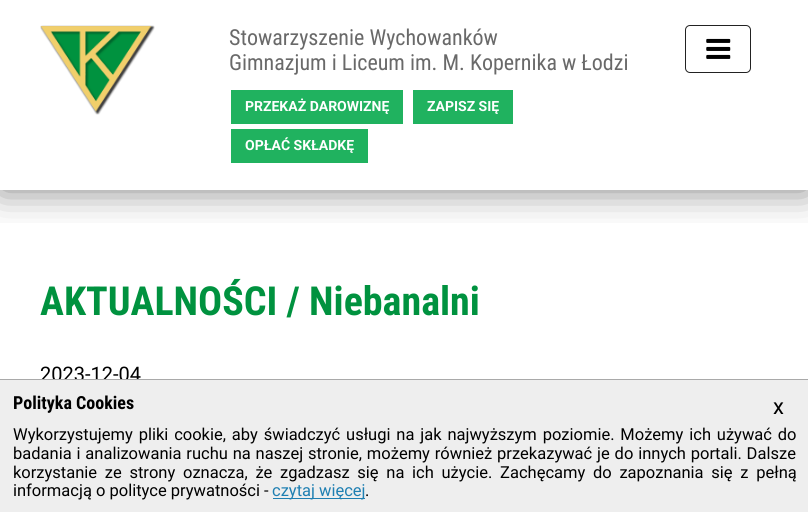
import math
import cairo



def draw_spaced(context, x, y, s, letter, word):
    context.move_to(x, y)
    for ch in s:
        context.show_text(ch)
        context.rel_move_to(letter + word * (ch == ' '), 0)


def rounded_rect(context, x, y, w, h, r):
    context.new_sub_path()
    for i, (u, v) in enumerate([(x + w - r, y + h - r), (x + r, y + h - r), (x + r, y + r), (x + w - r, y + r)]):
        context.arc(u, v, r, i * math.pi / 2, (i + 1) * math.pi / 2)
    context.close_path()


def draw_shadow(context, x, y, w, h, r, blur, alpha):
    context.push_group_with_content(cairo.Content.ALPHA)
    context.set_operator(cairo.Operator.SOURCE)
    for i in range(15, -16, -2):
        e = blur * i / 6
        if min(w, h) + 2 * e > 0:
            context.set_source_rgba(0, 0, 0, alpha * math.erfc((i - 1) / 8.5) / 2)
            rounded_rect(context, x - e, y - e, w + 2 * e, h + 2 * e, max(0, min(r + e + blur * .6, min(w, h) / 2 + e)))
            context.fill()
    context.mask(context.pop_group())


def draw_image(context, path, x, y, w, h):
    context.save()
    context.set_source_surface(cairo.ImageSurface.create_from_png(path), x, y)
    context.rectangle(x, y, w, h)
    context.fill()
    context.restore()


def draw(context):
    context.set_source_rgb(1, 1, 1)
    context.paint()
    context.save()
    context.rectangle(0, 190, 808, 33)
    context.clip()
    context.set_source_rgb(0, 0, 0)
    draw_shadow(context, 0, 0, 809, 190, 0, 19, 0.5)
    context.restore()
    draw_image(context, "images/1.png", 40, 25, 115, 90)
    context.set_source_rgb(32 / 255, 178 / 255, 95 / 255)
    context.rectangle(231, 90, 172, 34)
    context.fill()
    context.rectangle(413, 90, 100, 34)
    context.fill()
    context.rectangle(231, 129, 137, 34)
    context.fill()
    rounded_rect(context, 685.5, 25.5, 65, 47, 4.5)
    context.set_source_rgb(34 / 255, 34 / 255, 34 / 255)
    context.set_line_width(1)
    context.stroke()
    draw_image(context, "images/2.png", 706, 38, 25, 21)
    context.select_font_face("Roboto Condensed")
    context.set_font_size(22)
    context.set_source_rgb(105 / 255, 105 / 255, 105 / 255)
    context.move_to(229, 45)
    context.show_text("Stowarzyszenie Wychowanków")
    context.move_to(229, 70)
    context.show_text("Gimnazjum i Liceum im. M. Kopernika w Łodzi")
    context.select_font_face("Roboto", cairo.FontSlant.NORMAL, cairo.FontWeight.BOLD)
    context.set_font_size(14)
    context.set_source_rgb(1, 1, 1)
    context.move_to(245, 111)
    context.show_text("PRZEKAŻ DAROWIZNĘ")
    context.move_to(427, 111)
    context.show_text("ZAPISZ SIĘ")
    context.move_to(245, 150)
    context.show_text("OPŁAĆ SKŁADKĘ")
    context.select_font_face("Roboto Condensed", cairo.FontSlant.NORMAL, cairo.FontWeight.BOLD)
    context.set_font_size(40)
    context.set_source_rgb(0, 146 / 255, 63 / 255)
    context.move_to(40, 315)
    context.show_text("AKTUALNOŚCI / Niebanalni")
    context.select_font_face("Roboto")
    context.set_font_size(20)
    context.set_source_rgb(0, 0, 0)
    context.move_to(40, 381)
    context.show_text("2023-12-04")
    context.set_source_rgb(238 / 255, 238 / 255, 238 / 255)
    context.rectangle(0, 380, 808, 132)
    context.fill()
    context.set_source_rgb(169 / 255, 169 / 255, 169 / 255)
    context.rectangle(0, 379, 808, 1)
    context.fill()
    context.select_font_face("Roboto Condensed", cairo.FontSlant.NORMAL, cairo.FontWeight.BOLD)
    context.set_font_size(18)
    context.set_source_rgb(0, 0, 0)
    context.move_to(13, 409)
    context.show_text("Polityka Cookies")
    context.select_font_face("Roboto")
    context.set_font_size(22)
    context.move_to(773, 414)
    context.show_text("x")
    context.set_font_size(16.5)
    draw_spaced(context, 13, 440, "Wykorzystujemy pliki cookie, aby świadczyć usługi na jak najwyższym poziomie. Możemy ich używać do", 0, 1.75)
    draw_spaced(context, 13, 459, "badania i analizowania ruchu na naszej stronie, możemy również przekazywać je do innych portali. Dalsze", 0, 0.75)
    draw_spaced(context, 13, 478, "korzystanie ze strony oznacza, że zgadzasz się na ich użycie. Zachęcamy do zapoznania się z pełną", 0, 3.6)
    context.move_to(13, 496)
    context.show_text("informacją o polityce prywatności -")
    context.set_source_rgb(31 / 255, 127 / 255, 178 / 255)
    context.rectangle(273, 498, 92, 1)
    context.fill()
    context.move_to(272, 496)
    context.show_text("czytaj więcej")
    context.set_source_rgb(0, 0, 0)
    context.move_to(365, 496)
    context.show_text(".")


surface = cairo.ImageSurface(cairo.Format.RGB24, 808, 512)
context = cairo.Context(surface)
options = cairo.FontOptions()
options.set_hint_metrics(cairo.HintMetrics.OFF)
options.set_hint_style(cairo.HintStyle.NONE)
context.set_font_options(options)
context.set_miter_limit(4)
draw(context)
surface.write_to_png("out.png")
